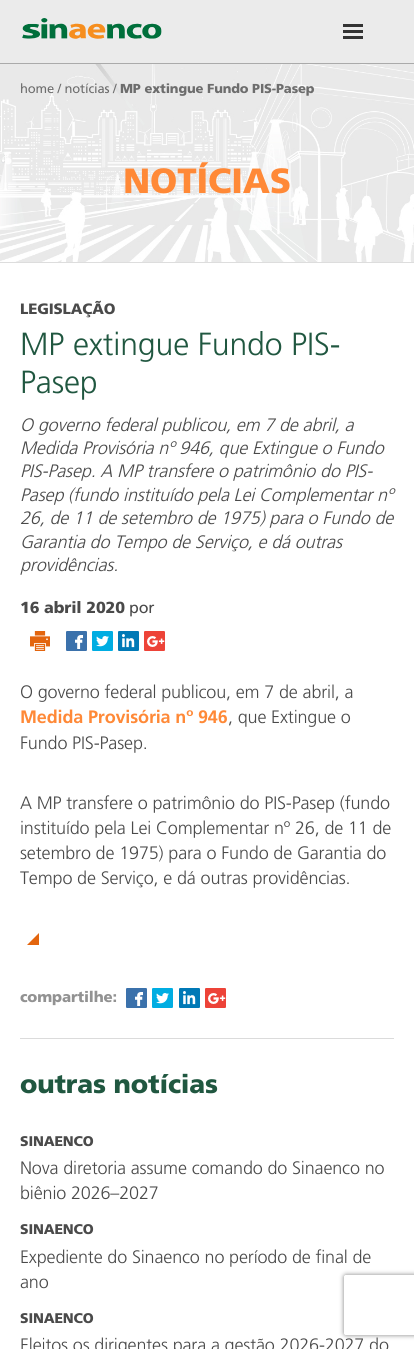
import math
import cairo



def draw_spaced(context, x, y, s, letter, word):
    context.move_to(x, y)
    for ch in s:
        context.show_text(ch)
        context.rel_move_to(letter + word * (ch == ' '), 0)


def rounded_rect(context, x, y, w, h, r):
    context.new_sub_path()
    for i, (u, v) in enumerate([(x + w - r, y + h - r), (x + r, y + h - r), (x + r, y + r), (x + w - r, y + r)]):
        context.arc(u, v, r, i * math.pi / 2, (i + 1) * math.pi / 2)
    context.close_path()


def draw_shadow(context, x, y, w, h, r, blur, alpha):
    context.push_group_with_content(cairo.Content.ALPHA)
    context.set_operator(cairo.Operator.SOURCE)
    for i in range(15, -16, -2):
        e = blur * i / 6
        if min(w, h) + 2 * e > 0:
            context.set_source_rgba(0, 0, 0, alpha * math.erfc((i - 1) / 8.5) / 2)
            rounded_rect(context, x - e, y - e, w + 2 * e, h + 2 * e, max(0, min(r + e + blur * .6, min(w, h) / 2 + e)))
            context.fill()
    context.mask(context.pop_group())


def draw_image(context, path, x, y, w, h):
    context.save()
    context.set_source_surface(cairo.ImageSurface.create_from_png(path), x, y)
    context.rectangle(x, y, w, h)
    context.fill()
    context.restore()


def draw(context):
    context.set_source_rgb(1, 1, 1)
    context.paint()
    draw_image(context, "images/1.png", 0, 64, 414, 198)
    context.set_source_rgb(235 / 255, 235 / 255, 235 / 255)
    context.rectangle(0, 0, 414, 63)
    context.fill()
    context.set_source_rgb(170 / 255, 170 / 255, 170 / 255)
    context.rectangle(0, 63, 414, 1)
    context.fill()
    draw_image(context, "images/2.png", 22, 18, 140, 21)
    context.set_source_rgb(51 / 255, 51 / 255, 51 / 255)
    context.rectangle(343, 24, 20, 3)
    context.fill()
    context.rectangle(343, 30, 20, 3)
    context.fill()
    context.rectangle(343, 36, 20, 3)
    context.fill()
    context.set_source_rgb(221 / 255, 221 / 255, 221 / 255)
    context.rectangle(0, 262, 414, 1)
    context.fill()
    draw_image(context, "images/3.png", 30, 631, 20, 20)
    draw_image(context, "images/4.png", 66, 631, 21, 20)
    draw_image(context, "images/5.png", 92, 631, 21, 20)
    draw_image(context, "images/6.png", 118, 631, 21, 20)
    draw_image(context, "images/7.png", 144, 631, 21, 20)
    context.set_source_rgb(227 / 255, 101 / 255, 14 / 255)
    context.new_path()
    context.move_to(39, 945)
    context.line_to(27, 945)
    context.line_to(39, 933)
    context.close_path()
    context.fill()
    draw_image(context, "images/4.png", 126, 988, 21, 20)
    draw_image(context, "images/5.png", 152, 988, 21, 20)
    draw_image(context, "images/6.png", 179, 988, 21, 20)
    draw_image(context, "images/7.png", 205, 988, 21, 20)
    context.set_source_rgb(219 / 255, 219 / 255, 219 / 255)
    context.rectangle(20, 1038, 374, 1)
    context.fill()
    context.save()
    context.set_fill_rule(cairo.FillRule.EVEN_ODD)
    context.new_path()
    context.move_to(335, 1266)
    context.line_to(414, 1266)
    context.line_to(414, 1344)
    context.line_to(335, 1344)
    context.close_path()
    context.move_to(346, 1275)
    context.line_to(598, 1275)
    context.curve_to(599, 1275, 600, 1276, 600, 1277)
    context.line_to(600, 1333)
    context.curve_to(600, 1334, 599, 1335, 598, 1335)
    context.line_to(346, 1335)
    context.curve_to(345, 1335, 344, 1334, 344, 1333)
    context.line_to(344, 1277)
    context.curve_to(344, 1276, 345, 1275, 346, 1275)
    context.close_path()
    context.clip()
    context.set_source_rgb(128 / 255, 128 / 255, 128 / 255)
    draw_shadow(context, 344, 1275, 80, 60, 2, 2.5, 1)
    context.restore()
    context.select_font_face("Frutiger")
    context.set_font_size(13)
    context.set_source_rgb(109 / 255, 109 / 255, 109 / 255)
    draw_spaced(context, 20, 93, "home / notícias /", -0.15, 0)
    context.select_font_face("Frutiger Black")
    draw_spaced(context, 120, 93, "MP extingue Fundo PIS-Pasep", -0.15, 0)
    context.set_font_size(35)
    context.set_source_rgb(1, 137 / 255, 55 / 255)
    draw_spaced(context, 123, 193, "NOTÍCIAS", -0.15, 0)
    context.set_font_size(15)
    context.set_source_rgb(74 / 255, 74 / 255, 74 / 255)
    draw_spaced(context, 20, 314, "LEGISLAÇÃO", -0.15, 0)
    context.select_font_face("Frutiger Light")
    context.set_font_size(32)
    context.set_source_rgb(32 / 255, 87 / 255, 64 / 255)
    draw_spaced(context, 20, 355, "MP extingue Fundo PIS-", -0.15, 0)
    draw_spaced(context, 20, 393, "Pasep", -0.15, 0)
    context.select_font_face("Frutiger Light", cairo.FontSlant.ITALIC)
    context.set_font_size(18)
    context.set_source_rgb(74 / 255, 74 / 255, 74 / 255)
    draw_spaced(context, 20, 431, "O governo federal publicou, em 7 de abril, a", -0.15, 0)
    draw_spaced(context, 20, 454, "Medida Provisória nº 946, que Extingue o Fundo", -0.15, 0)
    draw_spaced(context, 20, 477, "PIS-Pasep. A MP transfere o patrimônio do PIS-", -0.15, 0)
    draw_spaced(context, 20, 501, "Pasep (fundo instituído pela Lei Complementar nº", -0.15, 0)
    draw_spaced(context, 20, 524, "26, de 11 de setembro de 1975) para o Fundo de", -0.15, 0)
    draw_spaced(context, 20, 548, "Garantia do Tempo de Serviço, e dá outras", -0.15, 0)
    draw_spaced(context, 20, 571, "providências.", -0.15, 0)
    context.select_font_face("Frutiger Black")
    context.set_font_size(16)
    draw_spaced(context, 20, 613, "16 abril 2020", -0.15, 0)
    context.select_font_face("Frutiger")
    draw_spaced(context, 129, 613, "por", -0.15, 0)
    context.select_font_face("Frutiger Light")
    context.set_font_size(18)
    draw_spaced(context, 20, 698, "O governo federal publicou, em 7 de abril, a", -0.15, 0)
    context.select_font_face("Frutiger", cairo.FontSlant.NORMAL, cairo.FontWeight.BOLD)
    context.set_source_rgb(1, 137 / 255, 55 / 255)
    draw_spaced(context, 20, 723, "Medida Provisória nº 946", -0.15, 0)
    context.select_font_face("Frutiger Light")
    context.set_source_rgb(74 / 255, 74 / 255, 74 / 255)
    draw_spaced(context, 228, 723, ", que Extingue o", -0.15, 0)
    draw_spaced(context, 20, 749, "Fundo PIS-Pasep.", -0.15, 0)
    draw_spaced(context, 20, 809, "A MP transfere o patrimônio do PIS-Pasep (fundo", -0.15, 0)
    draw_spaced(context, 20, 834, "instituído pela Lei Complementar nº 26, de 11 de", -0.15, 0)
    draw_spaced(context, 20, 859, "setembro de 1975) para o Fundo de Garantia do", -0.15, 0)
    draw_spaced(context, 20, 884, "Tempo de Serviço, e dá outras providências.", -0.15, 0)
    context.select_font_face("Frutiger Black")
    context.set_font_size(15)
    context.set_source_rgb(146 / 255, 146 / 255, 146 / 255)
    draw_spaced(context, 20, 1002, "compartilhe:", -0.15, 0)
    context.set_font_size(26)
    context.set_source_rgb(32 / 255, 87 / 255, 64 / 255)
    draw_spaced(context, 20, 1093, "outras notícias", -0.15, 0)
    context.set_font_size(14)
    context.set_source_rgb(74 / 255, 74 / 255, 74 / 255)
    draw_spaced(context, 20, 1146, "SINAENCO", -0.15, 0)
    context.select_font_face("Frutiger Light")
    context.set_font_size(18)
    draw_spaced(context, 20, 1174, "Nova diretoria assume comando do Sinaenco no", -0.15, 0)
    draw_spaced(context, 20, 1199, "biênio 2026–2027", -0.15, 0)
    context.select_font_face("Frutiger Black")
    context.set_font_size(14)
    draw_spaced(context, 20, 1234, "SINAENCO", -0.15, 0)
    context.select_font_face("Frutiger Light")
    context.set_font_size(18)
    draw_spaced(context, 20, 1263, "Expediente do Sinaenco no período de final de", -0.15, 0)
    draw_spaced(context, 20, 1288, "ano", -0.15, 0)
    context.select_font_face("Frutiger Black")
    context.set_font_size(14)
    draw_spaced(context, 20, 1323, "SINAENCO", -0.15, 0)
    context.select_font_face("Frutiger Light")
    context.set_font_size(18)
    draw_spaced(context, 20, 1351, "Eleitos os dirigentes para a gestão 2026-2027 do", -0.15, 0)


surface = cairo.ImageSurface(cairo.Format.RGB24, 414, 1349)
context = cairo.Context(surface)
options = cairo.FontOptions()
options.set_hint_metrics(cairo.HintMetrics.OFF)
options.set_hint_style(cairo.HintStyle.NONE)
context.set_font_options(options)
context.set_miter_limit(4)
draw(context)
surface.write_to_png("out.png")
